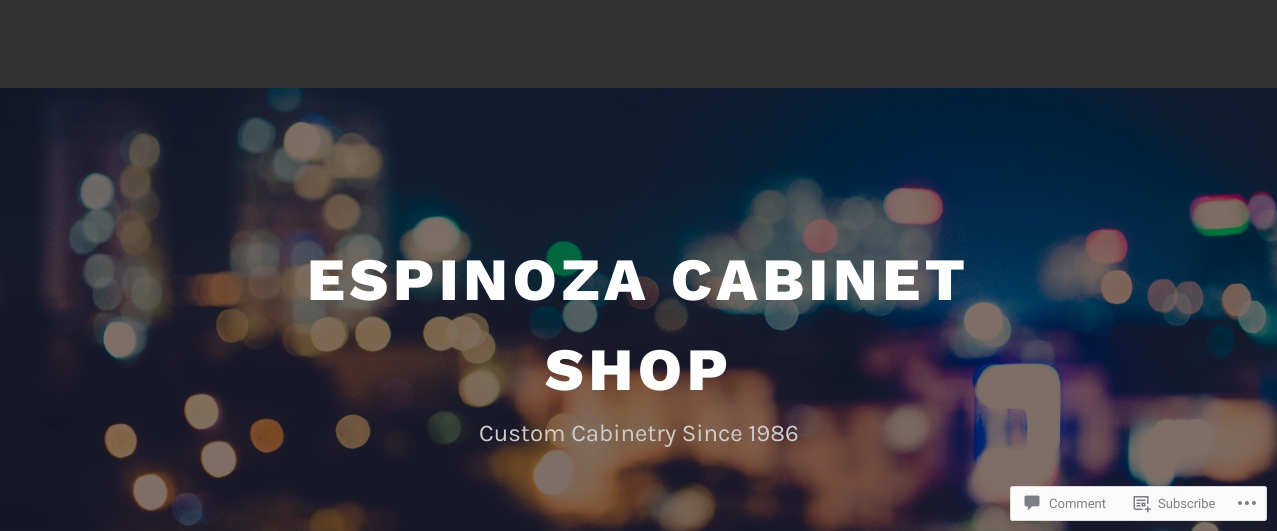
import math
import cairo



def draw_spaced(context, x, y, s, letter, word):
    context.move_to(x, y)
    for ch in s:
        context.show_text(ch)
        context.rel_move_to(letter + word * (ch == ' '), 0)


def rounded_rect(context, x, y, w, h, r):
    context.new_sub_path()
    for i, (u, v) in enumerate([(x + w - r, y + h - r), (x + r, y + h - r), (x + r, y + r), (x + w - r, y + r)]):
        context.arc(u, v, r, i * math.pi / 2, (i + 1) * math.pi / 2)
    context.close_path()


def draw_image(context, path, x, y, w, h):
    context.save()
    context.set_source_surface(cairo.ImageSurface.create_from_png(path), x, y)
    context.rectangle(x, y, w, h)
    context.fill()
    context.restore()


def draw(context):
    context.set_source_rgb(51 / 255, 51 / 255, 51 / 255)
    context.paint()
    draw_image(context, "images/1.png", 0, 88, 1277, 443)
    context.set_source_rgba(1, 1, 1, 0.98)
    rounded_rect(context, 1010, 486, 257, 35, 3)
    context.fill()
    rounded_rect(context, 1010.5, 486.5, 256, 34, 2.5)
    context.set_source_rgba(220 / 255, 220 / 255, 222 / 255, 0.98)
    context.set_line_width(1)
    context.stroke()
    draw_image(context, "images/2.png", 1024, 495, 16, 16)
    draw_image(context, "images/3.png", 1133, 496, 18, 17)
    draw_image(context, "images/4.png", 1238, 501, 18, 4)
    context.select_font_face("Work Sans ExtraBold")
    context.set_font_size(60)
    context.set_source_rgb(1, 1, 1)
    draw_spaced(context, 307, 300, "ESPINOZA CABINET", 4.75, 0)
    draw_spaced(context, 545, 390, "SHOP", 4.75, 0)
    context.select_font_face("Karla")
    context.set_font_size(24)
    context.set_source_rgb(204 / 255, 204 / 255, 204 / 255)
    context.move_to(479, 441)
    context.show_text("Custom Cabinetry Since 1986")
    context.select_font_face("Roboto")
    context.set_font_size(13)
    context.set_source_rgb(123 / 255, 127 / 255, 132 / 255)
    context.move_to(1049, 508)
    context.show_text("Comment")
    context.move_to(1158, 508)
    context.show_text("Subscribe")


surface = cairo.ImageSurface(cairo.Format.RGB24, 1277, 531)
context = cairo.Context(surface)
options = cairo.FontOptions()
options.set_hint_metrics(cairo.HintMetrics.OFF)
options.set_hint_style(cairo.HintStyle.NONE)
context.set_font_options(options)
context.set_miter_limit(4)
draw(context)
surface.write_to_png("out.png")
